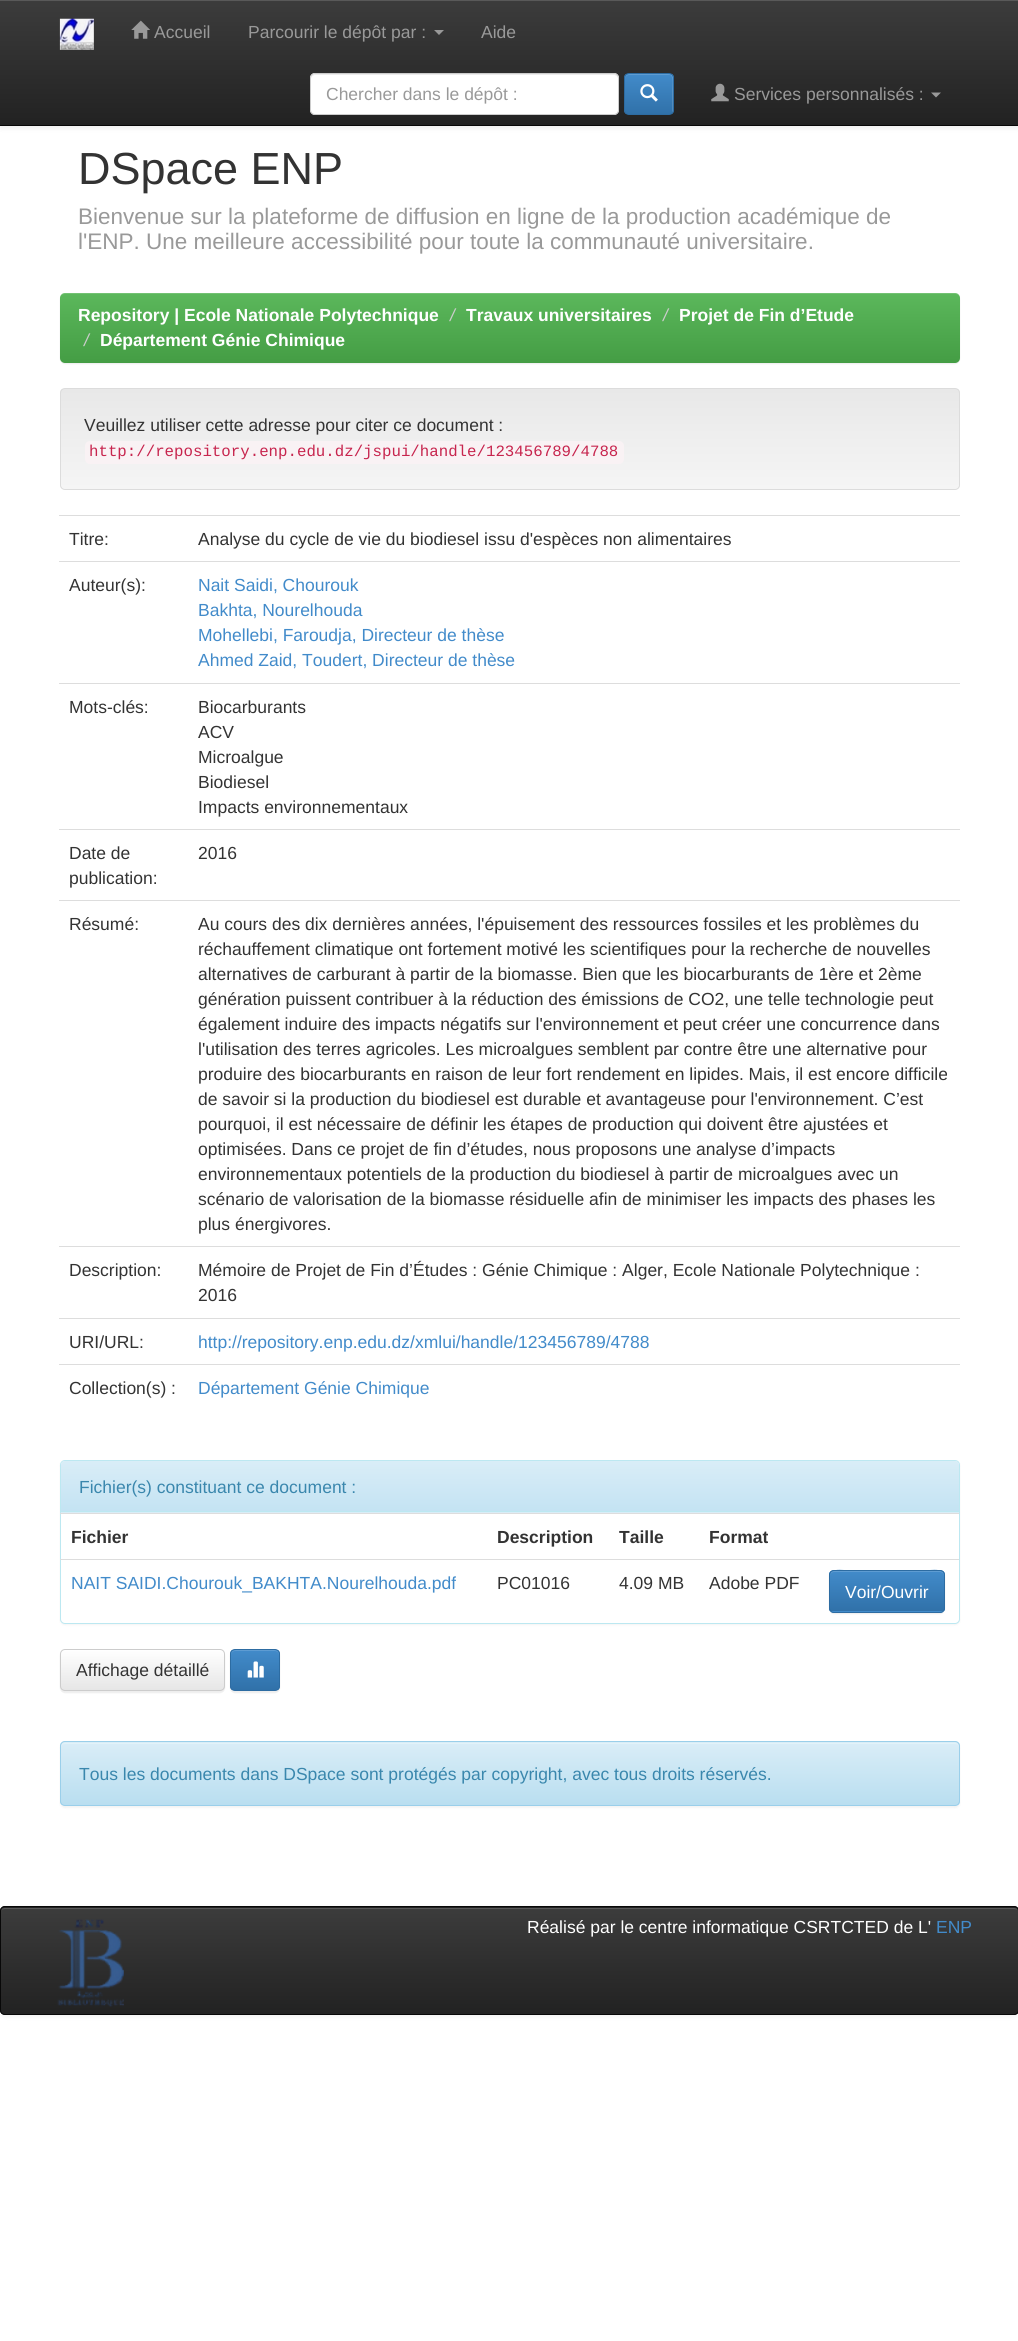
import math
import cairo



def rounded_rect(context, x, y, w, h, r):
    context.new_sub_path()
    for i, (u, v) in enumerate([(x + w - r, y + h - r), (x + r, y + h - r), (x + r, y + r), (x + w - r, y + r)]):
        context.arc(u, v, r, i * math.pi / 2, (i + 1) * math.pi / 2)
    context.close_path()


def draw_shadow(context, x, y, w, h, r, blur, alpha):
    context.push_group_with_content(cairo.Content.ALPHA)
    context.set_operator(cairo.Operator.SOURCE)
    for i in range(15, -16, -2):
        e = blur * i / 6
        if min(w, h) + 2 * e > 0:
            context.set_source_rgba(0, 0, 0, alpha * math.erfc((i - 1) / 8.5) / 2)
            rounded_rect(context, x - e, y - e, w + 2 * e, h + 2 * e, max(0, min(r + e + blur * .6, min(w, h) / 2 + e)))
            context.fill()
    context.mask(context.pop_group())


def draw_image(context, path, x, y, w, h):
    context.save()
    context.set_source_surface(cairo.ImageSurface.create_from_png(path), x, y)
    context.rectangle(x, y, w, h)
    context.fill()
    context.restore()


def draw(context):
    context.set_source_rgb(1, 1, 1)
    context.paint()
    context.set_source_rgb(0, 0, 0)
    draw_shadow(context, 0, 1, 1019, 127, 0, 3, 0.07)
    gradient = cairo.LinearGradient(509, 0, 509, 125)
    gradient.add_color_stop_rgba(0, 60 / 255, 60 / 255, 60 / 255, 1)
    gradient.add_color_stop_rgba(1, 34 / 255, 34 / 255, 34 / 255, 1)
    context.set_source(gradient)
    context.rectangle(0, 1, 1018, 124)
    context.fill()
    context.set_source_rgb(89 / 255, 89 / 255, 89 / 255)
    context.rectangle(0, 0, 1018, 1)
    context.fill()
    context.set_source_rgb(8 / 255, 8 / 255, 8 / 255)
    context.rectangle(0, 125, 1018, 1)
    context.fill()
    draw_image(context, "images/1.png", 59, 18, 35, 32)
    draw_image(context, "images/2.png", 131, 20, 19, 19)
    context.set_source_rgb(153 / 255, 153 / 255, 153 / 255)
    context.new_path()
    context.move_to(434, 30)
    context.line_to(444, 30)
    context.line_to(439, 35)
    context.close_path()
    context.fill()
    context.set_source_rgb(1, 1, 1)
    rounded_rect(context, 310, 73, 309, 42, 5)
    context.fill()
    context.set_source_rgb(236 / 255, 236 / 255, 236 / 255)
    context.new_path()
    context.move_to(315, 75)
    context.line_to(614, 75)
    context.curve_to(616, 75, 618, 77, 618, 79)
    context.curve_to(618, 76, 617, 74, 614, 74)
    context.line_to(315, 74)
    context.line_to(312, 75)
    context.curve_to(311, 76, 311, 78, 311, 79)
    context.curve_to(311, 77, 313, 75, 315, 75)
    context.close_path()
    context.fill()
    rounded_rect(context, 310.5, 73.5, 308, 41, 4.5)
    context.set_source_rgb(204 / 255, 204 / 255, 204 / 255)
    context.set_line_width(1)
    context.stroke()
    context.save()
    rounded_rect(context, 624, 73, 50, 42, 5)
    context.clip()
    gradient = cairo.LinearGradient(649, 74, 649, 114)
    gradient.add_color_stop_rgba(0, 66 / 255, 139 / 255, 202 / 255, 1)
    gradient.add_color_stop_rgba(1, 48 / 255, 113 / 255, 169 / 255, 1)
    context.set_source(gradient)
    context.rectangle(624, 74, 50, 40)
    context.fill()
    context.restore()
    context.set_source_rgba(1, 1, 1, 0.15)
    context.new_path()
    context.move_to(629, 75)
    context.line_to(670, 75)
    context.curve_to(674, 76, 672, 88, 672, 90)
    context.line_to(672, 113)
    context.curve_to(674, 111, 673, 107, 673, 105)
    context.line_to(673, 94)
    context.curve_to(673, 72, 677, 74, 656, 74)
    context.line_to(636, 74)
    context.curve_to(631, 74, 625, 73, 625, 79)
    context.curve_to(625, 77, 627, 75, 629, 75)
    context.close_path()
    context.fill()
    rounded_rect(context, 624.5, 73.5, 49, 41, 4.5)
    context.set_source_rgb(45 / 255, 108 / 255, 162 / 255)
    context.stroke()
    draw_image(context, "images/3.png", 640, 84, 18, 18)
    draw_image(context, "images/4.png", 711, 83, 18, 19)
    context.set_source_rgb(153 / 255, 153 / 255, 153 / 255)
    context.new_path()
    context.move_to(931, 92.5)
    context.line_to(941, 92.5)
    context.line_to(936, 97.5)
    context.close_path()
    context.fill()
    context.set_source_rgb(0, 0, 0)
    draw_shadow(context, 60, 294, 900, 70, 5, 0.5, 0.07)
    gradient = cairo.LinearGradient(510, 292, 510, 363)
    gradient.add_color_stop_rgba(0, 92 / 255, 184 / 255, 92 / 255, 1)
    gradient.add_color_stop_rgba(1, 68 / 255, 157 / 255, 68 / 255, 1)
    context.set_source(gradient)
    rounded_rect(context, 60, 293, 900, 70, 5)
    context.fill()
    context.set_source_rgba(1, 1, 1, 0.15)
    context.new_path()
    context.move_to(65, 294)
    context.line_to(955, 294)
    context.curve_to(958, 294, 960, 296, 960, 299)
    context.curve_to(960, 296, 958, 293, 955, 293)
    context.line_to(65, 293)
    context.curve_to(62, 293, 60, 296, 60, 299)
    context.curve_to(60, 296, 62, 294, 65, 294)
    context.close_path()
    context.fill()
    context.save()
    rounded_rect(context, 60, 388, 900, 102, 5)
    context.clip()
    gradient = cairo.LinearGradient(510, 389, 510, 489)
    gradient.add_color_stop_rgba(0, 232 / 255, 232 / 255, 232 / 255, 1)
    gradient.add_color_stop_rgba(1, 245 / 255, 245 / 255, 245 / 255, 1)
    context.set_source(gradient)
    context.rectangle(60, 389, 900, 100)
    context.fill()
    context.restore()
    rounded_rect(context, 60.5, 388.5, 899, 101, 4.5)
    context.set_source_rgb(220 / 255, 220 / 255, 220 / 255)
    context.stroke()
    context.set_source_rgb(249 / 255, 242 / 255, 244 / 255)
    rounded_rect(context, 85, 441, 539, 23, 5)
    context.fill()
    context.set_source_rgb(221 / 255, 221 / 255, 221 / 255)
    context.rectangle(59, 515, 901, 1)
    context.fill()
    context.rectangle(59, 561, 901, 1)
    context.fill()
    context.rectangle(59, 683, 901, 1)
    context.fill()
    context.rectangle(59, 829, 901, 1)
    context.fill()
    context.rectangle(59, 900, 901, 1)
    context.fill()
    context.rectangle(59, 1246, 901, 1)
    context.fill()
    context.rectangle(59, 1318, 901, 1)
    context.fill()
    context.rectangle(59, 1364, 901, 1)
    context.fill()
    context.set_source_rgb(0, 0, 0)
    draw_shadow(context, 60, 1461, 900, 164, 5, 1, 0.05)
    context.set_source_rgb(1, 1, 1)
    rounded_rect(context, 60.5, 1460.5, 899, 163, 4.5)
    context.fill_preserve()
    context.set_source_rgb(188 / 255, 232 / 255, 241 / 255)
    context.stroke()
    context.set_source_rgb(217 / 255, 237 / 255, 247 / 255)
    context.new_path()
    context.move_to(65, 1461)
    context.line_to(955, 1461)
    context.curve_to(957, 1461, 959, 1463, 959, 1465)
    context.line_to(959, 1513)
    context.line_to(61, 1513)
    context.line_to(61, 1465)
    context.curve_to(61, 1463, 63, 1461, 65, 1461)
    context.close_path()
    context.fill()
    gradient = cairo.LinearGradient(510, 1461, 510, 1511)
    gradient.add_color_stop_rgba(0, 217 / 255, 237 / 255, 247 / 255, 1)
    gradient.add_color_stop_rgba(1, 196 / 255, 227 / 255, 243 / 255, 1)
    context.set_source(gradient)
    context.new_path()
    context.move_to(65, 1461)
    context.line_to(955, 1461)
    context.curve_to(957, 1461, 959, 1463, 959, 1465)
    context.line_to(959, 1511)
    context.line_to(61, 1511)
    context.line_to(61, 1465)
    context.curve_to(61, 1463, 63, 1461, 65, 1461)
    context.close_path()
    context.fill()
    context.set_source_rgb(188 / 255, 232 / 255, 241 / 255)
    context.rectangle(61, 1511, 898, 1)
    context.fill()
    context.set_source_rgb(221 / 255, 221 / 255, 221 / 255)
    context.rectangle(60, 1513, 899, 1)
    context.fill()
    context.rectangle(60, 1559, 899, 1)
    context.fill()
    context.set_source_rgb(0, 0, 0)
    draw_shadow(context, 829, 1571, 116, 43, 5, 0.5, 0.07)
    context.set_source_rgb(66 / 255, 139 / 255, 202 / 255)
    rounded_rect(context, 829, 1570, 116, 43, 5)
    context.fill()
    context.save()
    rounded_rect(context, 829, 1570, 116, 43, 5)
    context.clip()
    gradient = cairo.LinearGradient(887, 1571, 887, 1611)
    gradient.add_color_stop_rgba(0, 66 / 255, 139 / 255, 202 / 255, 1)
    gradient.add_color_stop_rgba(1, 48 / 255, 113 / 255, 169 / 255, 1)
    context.set_source(gradient)
    context.rectangle(829, 1571, 116, 40)
    context.fill()
    context.restore()
    context.set_source_rgb(94 / 255, 156 / 255, 210 / 255)
    context.new_path()
    context.move_to(834, 1572)
    context.line_to(940, 1572)
    context.curve_to(942, 1572, 944, 1574, 944, 1576)
    context.curve_to(944, 1566, 926, 1571, 922, 1571)
    context.line_to(852, 1571)
    context.curve_to(848, 1571, 830, 1566, 830, 1576)
    context.curve_to(830, 1574, 832, 1572, 834, 1572)
    context.close_path()
    context.fill()
    rounded_rect(context, 829.5, 1570.5, 115, 42, 4.5)
    context.set_source_rgb(45 / 255, 108 / 255, 162 / 255)
    context.stroke()
    context.set_source_rgb(0, 0, 0)
    draw_shadow(context, 60, 1650, 165, 43, 5, 0.5, 0.07)
    context.save()
    rounded_rect(context, 60, 1649, 165, 42, 5)
    context.clip()
    gradient = cairo.LinearGradient(143, 1650, 143, 1690)
    gradient.add_color_stop_rgba(0, 1, 1, 1, 1)
    gradient.add_color_stop_rgba(1, 230 / 255, 230 / 255, 230 / 255, 1)
    context.set_source(gradient)
    context.rectangle(60, 1650, 165, 40)
    context.fill()
    context.restore()
    rounded_rect(context, 60.5, 1649.5, 164, 41, 4.5)
    context.set_source_rgb(204 / 255, 204 / 255, 204 / 255)
    context.stroke()
    context.set_source_rgb(0, 0, 0)
    draw_shadow(context, 230, 1650, 50, 43, 5, 0.5, 0.07)
    context.save()
    rounded_rect(context, 230, 1649, 50, 42, 5)
    context.clip()
    gradient = cairo.LinearGradient(255, 1650, 255, 1690)
    gradient.add_color_stop_rgba(0, 66 / 255, 139 / 255, 202 / 255, 1)
    gradient.add_color_stop_rgba(1, 48 / 255, 113 / 255, 169 / 255, 1)
    context.set_source(gradient)
    context.rectangle(230, 1650, 50, 40)
    context.fill()
    context.restore()
    context.set_source_rgb(94 / 255, 156 / 255, 210 / 255)
    context.new_path()
    context.move_to(235, 1651)
    context.line_to(275, 1651)
    context.curve_to(277, 1651, 279, 1653, 279, 1655)
    context.curve_to(279, 1649, 273, 1650, 268, 1650)
    context.line_to(242, 1650)
    context.curve_to(237, 1650, 231, 1649, 231, 1655)
    context.curve_to(231, 1653, 233, 1651, 235, 1651)
    context.close_path()
    context.fill()
    rounded_rect(context, 230.5, 1649.5, 49, 41, 4.5)
    context.set_source_rgb(45 / 255, 108 / 255, 162 / 255)
    context.stroke()
    draw_image(context, "images/5.png", 247, 1661, 17, 17)
    context.set_source_rgb(0, 0, 0)
    draw_shadow(context, 60, 1743, 900, 65, 5, 1, 0.05)
    context.set_source_rgb(217 / 255, 237 / 255, 247 / 255)
    rounded_rect(context, 60, 1741, 900, 65, 5)
    context.fill()
    context.save()
    rounded_rect(context, 60, 1741, 900, 65, 5)
    context.clip()
    gradient = cairo.LinearGradient(510, 1743, 510, 1805)
    gradient.add_color_stop_rgba(0, 217 / 255, 237 / 255, 247 / 255, 1)
    gradient.add_color_stop_rgba(1, 185 / 255, 222 / 255, 240 / 255, 1)
    context.set_source(gradient)
    context.rectangle(60, 1743, 900, 62)
    context.fill()
    context.restore()
    context.set_source_rgb(226 / 255, 242 / 255, 249 / 255)
    context.new_path()
    context.move_to(65, 1744)
    context.line_to(955, 1744)
    context.curve_to(957, 1744, 959, 1745, 959, 1748)
    context.curve_to(959, 1745, 958, 1743, 955, 1743)
    context.line_to(65, 1743)
    context.curve_to(62, 1743, 61, 1745, 61, 1748)
    context.curve_to(61, 1745, 63, 1744, 65, 1744)
    context.close_path()
    context.fill()
    rounded_rect(context, 60.5, 1741.5, 899, 64, 4.5)
    context.set_source_rgb(154 / 255, 207 / 255, 234 / 255)
    context.stroke()
    context.set_source_rgb(0, 0, 0)
    draw_shadow(context, 0, 1908, 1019, 108, 5, 3, 0.07)
    context.set_source_rgb(34 / 255, 34 / 255, 34 / 255)
    rounded_rect(context, 0, 1906, 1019, 109, 5)
    context.fill()
    context.save()
    rounded_rect(context, 0, 1906, 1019, 109, 5)
    context.clip()
    gradient = cairo.LinearGradient(509, 1908, 509, 2014)
    gradient.add_color_stop_rgba(0, 60 / 255, 60 / 255, 60 / 255, 1)
    gradient.add_color_stop_rgba(1, 34 / 255, 34 / 255, 34 / 255, 1)
    context.set_source(gradient)
    context.rectangle(0, 1908, 1018, 106)
    context.fill()
    context.restore()
    context.set_source_rgb(89 / 255, 89 / 255, 89 / 255)
    context.new_path()
    context.move_to(5, 1909)
    context.line_to(1014, 1909)
    context.curve_to(1016, 1909, 1018, 1910, 1018, 1912)
    context.curve_to(1018, 1910, 1016, 1908, 1014, 1908)
    context.line_to(5, 1908)
    context.curve_to(3, 1908, 1, 1910, 1, 1912)
    context.curve_to(1, 1910, 3, 1909, 5, 1909)
    context.close_path()
    context.fill()
    rounded_rect(context, 0.5, 1906.5, 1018, 108, 4.5)
    context.set_source_rgb(8 / 255, 8 / 255, 8 / 255)
    context.stroke()
    draw_image(context, "images/6.png", 57, 1919, 67, 88)
    context.select_font_face("Liberation Sans")
    context.set_font_size(17.5)
    context.set_source_rgb(153 / 255, 153 / 255, 153 / 255)
    context.move_to(154, 38)
    context.show_text("Accueil")
    context.move_to(248, 38)
    context.show_text("Parcourir le dépôt par :")
    context.move_to(481, 38)
    context.show_text("Aide")
    context.move_to(326, 100)
    context.show_text("Chercher dans le dépôt :")
    context.move_to(734, 100)
    context.show_text("Services personnalisés :")
    context.set_font_size(45)
    context.set_source_rgb(51 / 255, 51 / 255, 51 / 255)
    context.move_to(78, 184)
    context.show_text("DSpace ENP")
    context.set_font_size(22.5)
    context.set_source_rgb(153 / 255, 153 / 255, 153 / 255)
    context.move_to(78, 224)
    context.show_text("Bienvenue sur la plateforme de diffusion en ligne de la production académique de")
    context.move_to(78, 249)
    context.show_text("l'ENP. Une meilleure accessibilité pour toute la communauté universitaire.")
    context.select_font_face("Liberation Sans", cairo.FontSlant.NORMAL, cairo.FontWeight.BOLD)
    context.set_font_size(17.5)
    context.set_source_rgb(1, 1, 1)
    context.move_to(78, 321)
    context.show_text("Repository | Ecole Nationale Polytechnique")
    context.select_font_face("Liberation Sans", cairo.FontSlant.ITALIC)
    context.set_source_rgb(204 / 255, 204 / 255, 204 / 255)
    context.move_to(450, 321)
    context.show_text("/")
    context.select_font_face("Liberation Sans", cairo.FontSlant.NORMAL, cairo.FontWeight.BOLD)
    context.set_source_rgb(1, 1, 1)
    context.move_to(466, 321)
    context.show_text("Travaux universitaires")
    context.select_font_face("Liberation Sans", cairo.FontSlant.ITALIC)
    context.set_source_rgb(204 / 255, 204 / 255, 204 / 255)
    context.move_to(663, 321)
    context.show_text("/")
    context.select_font_face("Liberation Sans", cairo.FontSlant.NORMAL, cairo.FontWeight.BOLD)
    context.set_source_rgb(1, 1, 1)
    context.move_to(679, 321)
    context.show_text("Projet de Fin d’Etude")
    context.select_font_face("Liberation Sans", cairo.FontSlant.ITALIC)
    context.set_source_rgb(204 / 255, 204 / 255, 204 / 255)
    context.move_to(84, 346)
    context.show_text("/")
    context.select_font_face("Liberation Sans", cairo.FontSlant.NORMAL, cairo.FontWeight.BOLD)
    context.set_source_rgb(1, 1, 1)
    context.move_to(100, 346)
    context.show_text("Département Génie Chimique")
    context.select_font_face("Liberation Sans")
    context.set_source_rgb(51 / 255, 51 / 255, 51 / 255)
    context.move_to(84, 431)
    context.show_text("Veuillez utiliser cette adresse pour citer ce document :")
    context.select_font_face("Liberation Mono")
    context.set_font_size(15.75)
    context.set_source_rgb(199 / 255, 37 / 255, 78 / 255)
    context.move_to(89, 456)
    context.show_text("http://repository.enp.edu.dz/jspui/handle/123456789/4788")
    context.select_font_face("Liberation Sans")
    context.set_font_size(17.5)
    context.set_source_rgb(51 / 255, 51 / 255, 51 / 255)
    context.move_to(69, 545)
    context.show_text("Titre:")
    context.move_to(198, 545)
    context.show_text("Analyse du cycle de vie du biodiesel issu d'espèces non alimentaires")
    context.move_to(69, 591)
    context.show_text("Auteur(s):")
    context.set_source_rgb(66 / 255, 139 / 255, 202 / 255)
    context.move_to(198, 591)
    context.show_text("Nait Saidi, Chourouk")
    context.move_to(198, 616)
    context.show_text("Bakhta, Nourelhouda")
    context.move_to(198, 641)
    context.show_text("Mohellebi, Faroudja, Directeur de thèse")
    context.move_to(198, 666)
    context.show_text("Ahmed Zaid, Toudert, Directeur de thèse")
    context.set_source_rgb(51 / 255, 51 / 255, 51 / 255)
    context.move_to(69, 713)
    context.show_text("Mots-clés:")
    context.move_to(198, 713)
    context.show_text("Biocarburants")
    context.move_to(198, 738)
    context.show_text("ACV")
    context.move_to(198, 763)
    context.show_text("Microalgue")
    context.move_to(198, 788)
    context.show_text("Biodiesel")
    context.move_to(198, 813)
    context.show_text("Impacts environnementaux")
    context.move_to(69, 859)
    context.show_text("Date de")
    context.move_to(69, 884)
    context.show_text("publication:")
    context.move_to(198, 859)
    context.show_text("2016")
    context.move_to(69, 930)
    context.show_text("Résumé:")
    context.move_to(198, 930)
    context.show_text("Au cours des dix dernières années, l'épuisement des ressources fossiles et les problèmes du")
    context.move_to(198, 955)
    context.show_text("réchauffement climatique ont fortement motivé les scientifiques pour la recherche de nouvelles")
    context.move_to(198, 980)
    context.show_text("alternatives de carburant à partir de la biomasse. Bien que les biocarburants de 1ère et 2ème")
    context.move_to(198, 1005)
    context.show_text("génération puissent contribuer à la réduction des émissions de CO2, une telle technologie peut")
    context.move_to(198, 1030)
    context.show_text("également induire des impacts négatifs sur l'environnement et peut créer une concurrence dans")
    context.move_to(198, 1055)
    context.show_text("l'utilisation des terres agricoles. Les microalgues semblent par contre être une alternative pour")
    context.move_to(198, 1080)
    context.show_text("produire des biocarburants en raison de leur fort rendement en lipides. Mais, il est encore difficile")
    context.move_to(198, 1105)
    context.show_text("de savoir si la production du biodiesel est durable et avantageuse pour l'environnement. C’est")
    context.move_to(198, 1130)
    context.show_text("pourquoi, il est nécessaire de définir les étapes de production qui doivent être ajustées et")
    context.move_to(198, 1155)
    context.show_text("optimisées. Dans ce projet de fin d’études, nous proposons une analyse d’impacts")
    context.move_to(198, 1180)
    context.show_text("environnementaux potentiels de la production du biodiesel à partir de microalgues avec un")
    context.move_to(198, 1205)
    context.show_text("scénario de valorisation de la biomasse résiduelle afin de minimiser les impacts des phases les")
    context.move_to(198, 1230)
    context.show_text("plus énergivores.")
    context.move_to(69, 1276)
    context.show_text("Description:")
    context.move_to(198, 1276)
    context.show_text("Mémoire de Projet de Fin d’Études : Génie Chimique : Alger, Ecole Nationale Polytechnique :")
    context.move_to(198, 1301)
    context.show_text("2016")
    context.move_to(69, 1348)
    context.show_text("URI/URL:")
    context.set_source_rgb(66 / 255, 139 / 255, 202 / 255)
    context.move_to(198, 1348)
    context.show_text("http://repository.enp.edu.dz/xmlui/handle/123456789/4788")
    context.set_source_rgb(51 / 255, 51 / 255, 51 / 255)
    context.move_to(69, 1394)
    context.show_text("Collection(s) :")
    context.set_source_rgb(66 / 255, 139 / 255, 202 / 255)
    context.move_to(198, 1394)
    context.show_text("Département Génie Chimique")
    context.set_source_rgb(58 / 255, 135 / 255, 173 / 255)
    context.move_to(79, 1493)
    context.show_text("Fichier(s) constituant ce document :")
    context.select_font_face("Liberation Sans", cairo.FontSlant.NORMAL, cairo.FontWeight.BOLD)
    context.set_source_rgb(51 / 255, 51 / 255, 51 / 255)
    context.move_to(71, 1543)
    context.show_text("Fichier")
    context.move_to(497, 1543)
    context.show_text("Description")
    context.move_to(619, 1543)
    context.show_text("Taille")
    context.move_to(709, 1543)
    context.show_text("Format")
    context.select_font_face("Liberation Sans")
    context.set_source_rgb(66 / 255, 139 / 255, 202 / 255)
    context.move_to(71, 1589)
    context.show_text("NAIT SAIDI.Chourouk_BAKHTA.Nourelhouda.pdf")
    context.set_source_rgb(51 / 255, 51 / 255, 51 / 255)
    context.move_to(497, 1589)
    context.show_text("PC01016")
    context.move_to(619, 1589)
    context.show_text("4.09 MB")
    context.move_to(709, 1589)
    context.show_text("Adobe PDF")
    context.set_source_rgb(1, 1, 1)
    context.move_to(845, 1598)
    context.show_text("Voir/Ouvrir")
    context.set_source_rgb(51 / 255, 51 / 255, 51 / 255)
    context.move_to(76, 1676)
    context.show_text("Affichage détaillé")
    context.set_source_rgb(58 / 255, 135 / 255, 173 / 255)
    context.move_to(79, 1780)
    context.show_text("Tous les documents dans DSpace sont protégés par copyright, avec tous droits réservés.")
    context.set_source_rgb(1, 1, 1)
    context.move_to(527, 1933)
    context.show_text("Réalisé par le centre informatique CSRTCTED de L'")
    context.set_source_rgb(66 / 255, 139 / 255, 202 / 255)
    context.move_to(936, 1933)
    context.show_text("ENP")


surface = cairo.ImageSurface(cairo.Format.RGB24, 1018, 2341)
context = cairo.Context(surface)
options = cairo.FontOptions()
options.set_hint_metrics(cairo.HintMetrics.OFF)
options.set_hint_style(cairo.HintStyle.NONE)
context.set_font_options(options)
context.set_miter_limit(4)
draw(context)
surface.write_to_png("out.png")
